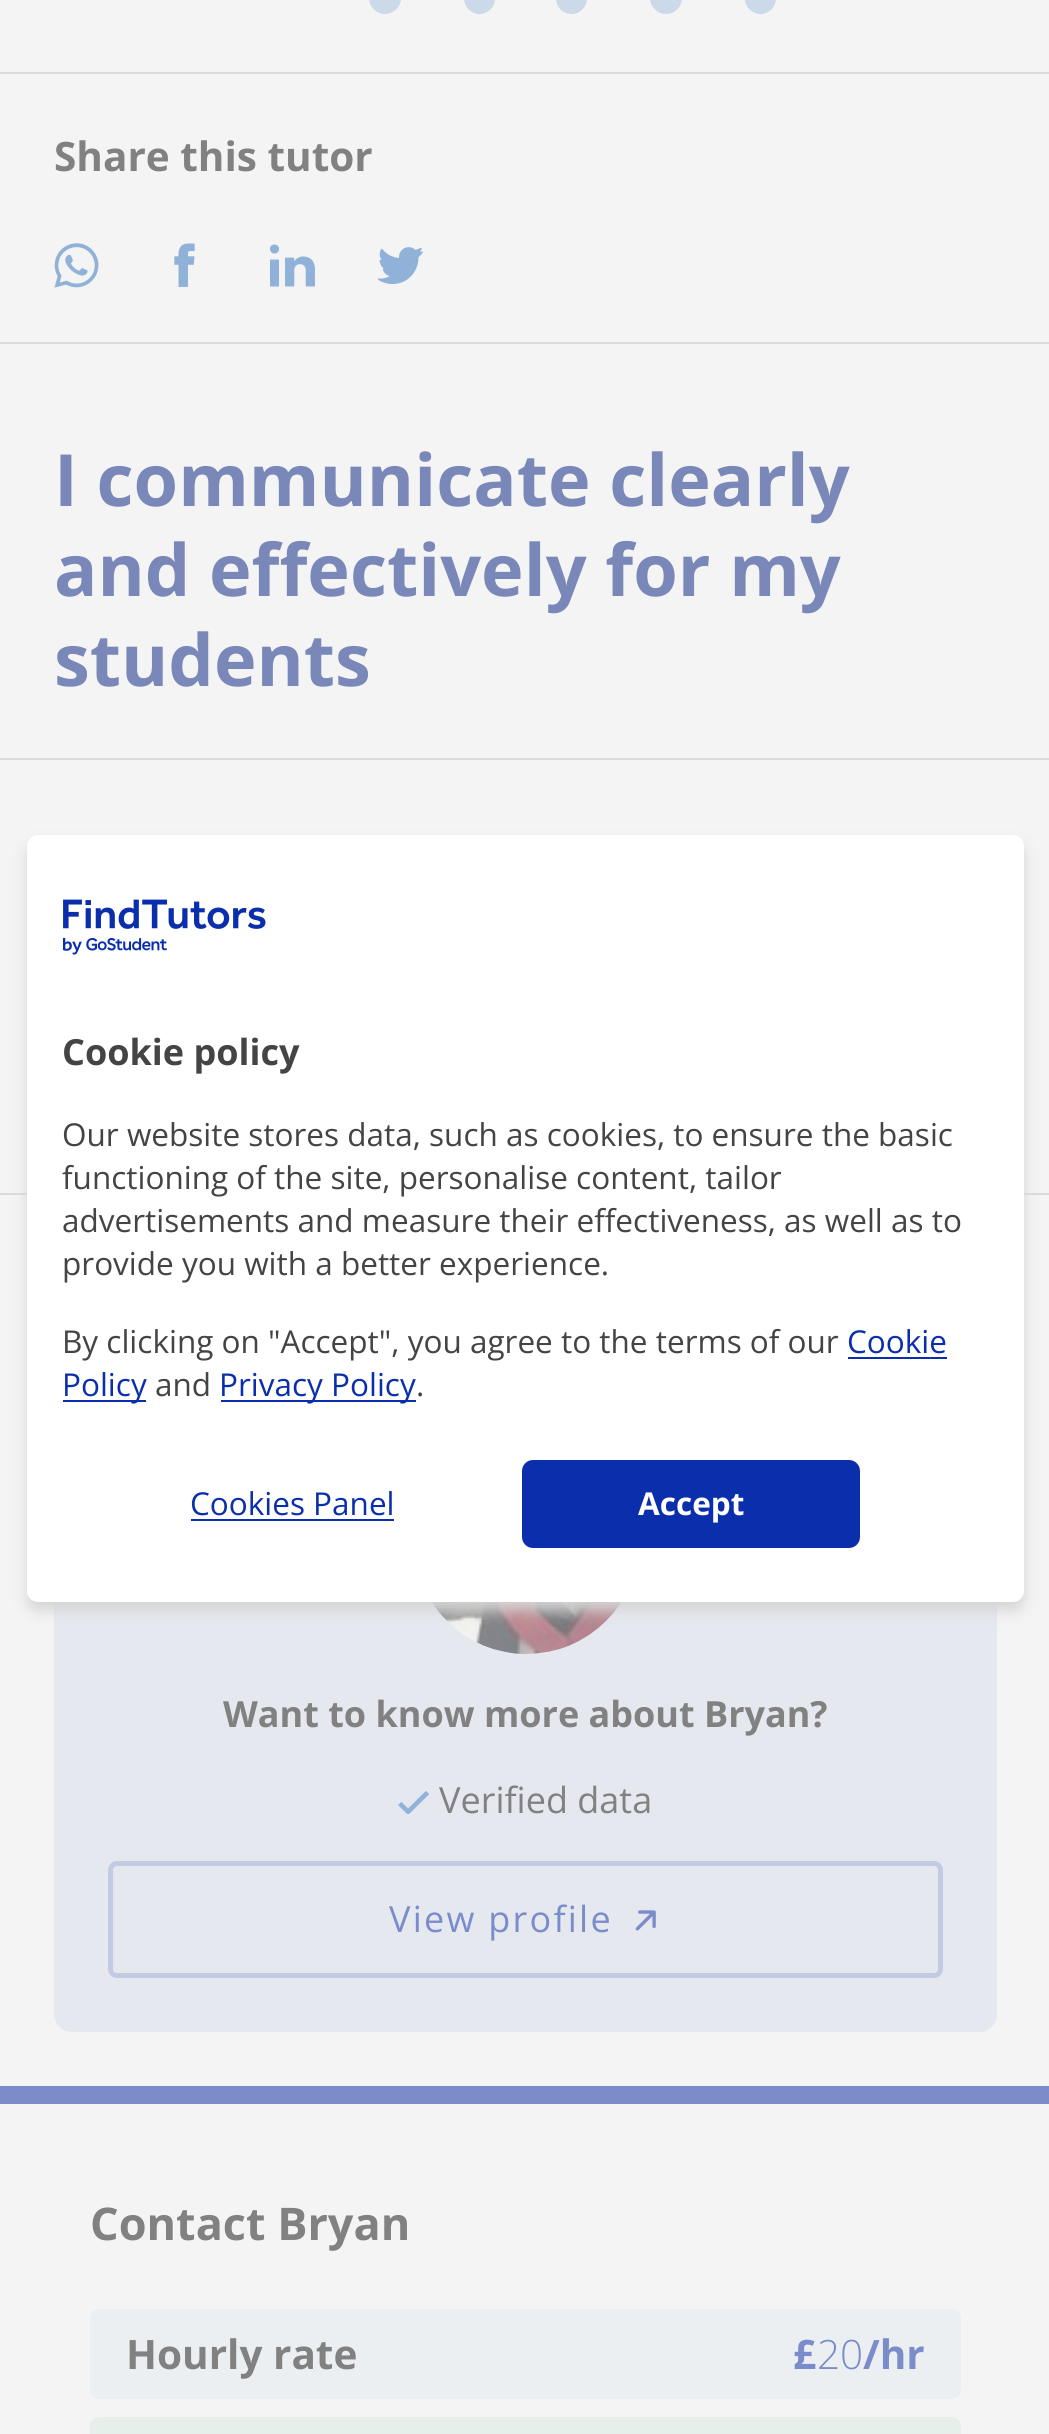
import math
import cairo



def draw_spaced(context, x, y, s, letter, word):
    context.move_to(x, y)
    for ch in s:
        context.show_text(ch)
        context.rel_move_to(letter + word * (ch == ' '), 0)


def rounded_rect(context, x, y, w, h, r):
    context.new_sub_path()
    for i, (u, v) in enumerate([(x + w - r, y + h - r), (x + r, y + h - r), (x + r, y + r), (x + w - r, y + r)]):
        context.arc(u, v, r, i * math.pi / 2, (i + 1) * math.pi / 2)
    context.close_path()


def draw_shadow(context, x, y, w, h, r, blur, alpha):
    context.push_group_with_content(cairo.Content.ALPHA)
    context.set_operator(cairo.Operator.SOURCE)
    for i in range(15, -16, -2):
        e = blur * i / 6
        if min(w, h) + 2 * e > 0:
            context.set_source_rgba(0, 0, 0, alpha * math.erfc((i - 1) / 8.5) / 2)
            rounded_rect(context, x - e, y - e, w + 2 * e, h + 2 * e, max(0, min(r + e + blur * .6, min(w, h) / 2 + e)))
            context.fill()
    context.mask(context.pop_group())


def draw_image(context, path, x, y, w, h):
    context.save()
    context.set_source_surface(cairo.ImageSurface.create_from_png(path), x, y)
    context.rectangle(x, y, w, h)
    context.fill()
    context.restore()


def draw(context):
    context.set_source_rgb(244 / 255, 244 / 255, 244 / 255)
    context.paint()
    context.set_source_rgb(204 / 255, 217 / 255, 233 / 255)
    rounded_rect(context, 369, -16, 32, 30, 16)
    context.fill()
    rounded_rect(context, 464, -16, 31, 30, 15.5)
    context.fill()
    rounded_rect(context, 556, -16, 31, 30, 15.5)
    context.fill()
    rounded_rect(context, 650, -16, 32, 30, 16)
    context.fill()
    rounded_rect(context, 745, -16, 31, 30, 15.5)
    context.fill()
    context.set_source_rgb(218 / 255, 218 / 255, 218 / 255)
    context.rectangle(0, 72, 1049, 2)
    context.fill()
    context.rectangle(0, 342, 1049, 2)
    context.fill()
    draw_image(context, "images/1.png", 54, 243, 45, 45)
    draw_image(context, "images/2.png", 174, 243, 21, 44)
    draw_image(context, "images/3.png", 270, 244, 45, 43)
    draw_image(context, "images/4.png", 378, 247, 45, 38)
    context.rectangle(0, 758, 1049, 2)
    context.fill()
    context.rectangle(0, 1193, 1049, 2)
    context.fill()
    context.set_source_rgb(230 / 255, 232 / 255, 239 / 255)
    rounded_rect(context, 54, 1375, 943, 657, 18)
    context.fill()
    draw_image(context, "images/5.png", 431, 1602, 191, 52)
    draw_image(context, "images/6.png", 398, 1791, 31, 24)
    rounded_rect(context, 110.5, 1863.5, 830, 112, 6.5)
    context.set_source_rgb(195 / 255, 202 / 255, 227 / 255)
    context.set_line_width(5)
    context.stroke()
    draw_image(context, "images/7.png", 635, 1910, 21, 21)
    context.set_source_rgb(122 / 255, 140 / 255, 202 / 255)
    context.rectangle(0, 2086, 1049, 18)
    context.fill()
    context.set_source_rgb(236 / 255, 239 / 255, 242 / 255)
    rounded_rect(context, 90, 2309, 871, 90, 9)
    context.fill()
    context.set_source_rgb(231 / 255, 239 / 255, 235 / 255)
    rounded_rect(context, 90, 2417, 871, 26, 9)
    context.fill()
    context.set_source_rgb(214 / 255, 214 / 255, 214 / 255)
    draw_shadow(context, 27, 844, 997, 767, 11, 7, 1)
    context.set_source_rgb(1, 1, 1)
    rounded_rect(context, 27, 835, 997, 767, 11)
    context.fill()
    draw_image(context, "images/8.png", 63, 899, 203, 56)
    context.set_source_rgb(11 / 255, 47 / 255, 172 / 255)
    context.rectangle(848, 1357, 99, 2)
    context.fill()
    context.rectangle(63, 1400, 83, 2)
    context.fill()
    context.rectangle(221, 1400, 195, 2)
    context.fill()
    context.rectangle(191, 1519, 203, 2)
    context.fill()
    rounded_rect(context, 522, 1460, 338, 88, 11)
    context.fill()
    context.select_font_face("Open Sans", cairo.FontSlant.NORMAL, cairo.FontWeight.BOLD)
    context.set_font_size(40.5)
    context.set_source_rgb(129 / 255, 129 / 255, 129 / 255)
    context.move_to(54, 171)
    context.show_text("Share this tutor")
    context.set_font_size(72)
    context.set_source_rgb(121 / 255, 135 / 255, 185 / 255)
    context.move_to(54, 506)
    context.show_text("I communicate clearly")
    context.move_to(54, 596)
    context.show_text("and effectively for my")
    context.move_to(54, 686)
    context.show_text("students")
    context.set_font_size(36)
    context.set_source_rgb(129 / 255, 129 / 255, 129 / 255)
    context.move_to(223, 1727)
    context.show_text("Want to know more about Bryan?")
    context.select_font_face("Open Sans")
    context.move_to(439, 1813)
    context.show_text("Verified data")
    context.set_source_rgb(122 / 255, 140 / 255, 202 / 255)
    draw_spaced(context, 389, 1932, "View profile", 2.25, 0)
    context.select_font_face("Open Sans", cairo.FontSlant.NORMAL, cairo.FontWeight.BOLD)
    context.set_font_size(45)
    context.set_source_rgb(129 / 255, 129 / 255, 129 / 255)
    context.move_to(90, 2240)
    context.show_text("Contact Bryan")
    context.set_font_size(40.5)
    context.move_to(126, 2369)
    context.show_text("Hourly rate")
    context.set_source_rgb(122 / 255, 140 / 255, 202 / 255)
    context.move_to(793, 2369)
    context.show_text("£")
    context.select_font_face("Open Sans Light")
    context.move_to(817, 2369)
    context.show_text("20")
    context.select_font_face("Open Sans", cairo.FontSlant.NORMAL, cairo.FontWeight.BOLD)
    context.move_to(863, 2369)
    context.show_text("/hr")
    context.set_font_size(36)
    context.set_source_rgb(68 / 255, 68 / 255, 68 / 255)
    context.move_to(62, 1065)
    context.show_text("Cookie policy")
    context.select_font_face("Open Sans")
    context.set_font_size(31.5)
    context.move_to(62, 1146)
    context.show_text("Our website stores data, such as cookies, to ensure the basic")
    context.move_to(62, 1189)
    context.show_text("functioning of the site, personalise content, tailor")
    context.move_to(62, 1232)
    context.show_text("advertisements and measure their effectiveness, as well as to")
    context.move_to(62, 1275)
    context.show_text("provide you with a better experience.")
    context.move_to(62, 1353)
    context.show_text("By clicking on \"Accept\", you agree to the terms of our")
    context.set_source_rgb(11 / 255, 47 / 255, 172 / 255)
    context.move_to(847, 1353)
    context.show_text("Cookie")
    context.move_to(62, 1396)
    context.show_text("Policy")
    context.set_source_rgb(68 / 255, 68 / 255, 68 / 255)
    context.move_to(155, 1396)
    context.show_text("and")
    context.set_source_rgb(11 / 255, 47 / 255, 172 / 255)
    context.move_to(219, 1396)
    context.show_text("Privacy Policy")
    context.set_source_rgb(68 / 255, 68 / 255, 68 / 255)
    context.move_to(416, 1396)
    context.show_text(".")
    context.set_source_rgb(11 / 255, 47 / 255, 172 / 255)
    context.move_to(190, 1515)
    context.show_text("Cookies Panel")
    context.select_font_face("Open Sans", cairo.FontSlant.NORMAL, cairo.FontWeight.BOLD)
    context.set_source_rgb(1, 1, 1)
    context.move_to(638, 1515)
    context.show_text("Accept")


surface = cairo.ImageSurface(cairo.Format.RGB24, 1049, 2434)
context = cairo.Context(surface)
options = cairo.FontOptions()
options.set_hint_metrics(cairo.HintMetrics.OFF)
options.set_hint_style(cairo.HintStyle.NONE)
context.set_font_options(options)
context.set_miter_limit(4)
draw(context)
surface.write_to_png("out.png")
